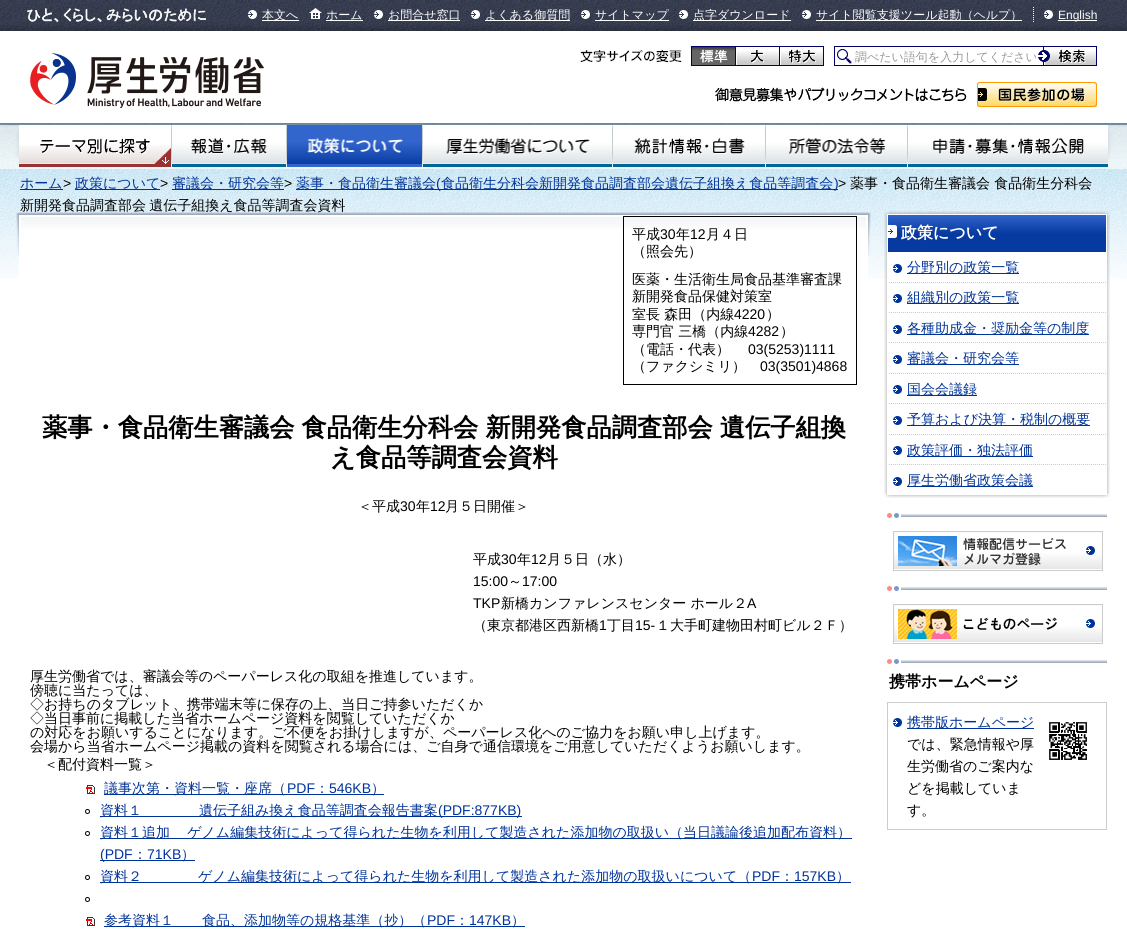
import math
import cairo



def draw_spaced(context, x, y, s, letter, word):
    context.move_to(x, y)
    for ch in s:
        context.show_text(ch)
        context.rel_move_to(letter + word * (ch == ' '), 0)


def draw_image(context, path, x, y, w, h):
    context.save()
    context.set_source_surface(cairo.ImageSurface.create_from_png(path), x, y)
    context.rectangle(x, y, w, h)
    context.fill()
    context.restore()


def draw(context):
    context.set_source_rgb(1, 1, 1)
    context.paint()
    draw_image(context, "images/1.png", 0, 0, 1127, 1)
    draw_image(context, "images/2.png", 0, 1, 1127, 30)
    draw_image(context, "images/3.png", 26, 7, 181, 16)
    draw_image(context, "images/4.png", 248, 7, 9, 15)
    context.set_source_rgb(1, 1, 1)
    context.rectangle(262, 20, 37, 1)
    context.fill()
    draw_image(context, "images/5.png", 309, 7, 13, 13)
    context.rectangle(326, 20, 37, 1)
    context.fill()
    draw_image(context, "images/4.png", 374, 7, 9, 15)
    context.rectangle(388, 20, 72, 1)
    context.fill()
    draw_image(context, "images/4.png", 471, 7, 9, 15)
    context.rectangle(485, 20, 85, 1)
    context.fill()
    draw_image(context, "images/4.png", 581, 7, 9, 15)
    context.rectangle(595, 20, 74, 1)
    context.fill()
    draw_image(context, "images/4.png", 679, 7, 9, 15)
    context.rectangle(693, 20, 98, 1)
    context.fill()
    draw_image(context, "images/4.png", 802, 7, 9, 15)
    context.rectangle(816, 20, 206, 1)
    context.fill()
    draw_image(context, "images/6.png", 1033, 7, 20, 15)
    context.rectangle(1058, 20, 39, 1)
    context.fill()
    draw_image(context, "images/7.png", 30, 53, 234, 55)
    context.set_source_rgb(1 / 255, 1 / 255, 103 / 255)
    context.rectangle(823, 46, 1, 20)
    context.fill()
    context.rectangle(691, 65, 133, 1)
    context.fill()
    context.rectangle(691, 46, 132, 1)
    context.fill()
    context.rectangle(691, 46, 1, 19)
    context.fill()
    draw_image(context, "images/8.png", 692, 47, 43, 18)
    draw_image(context, "images/9.png", 580, 49, 102, 14)
    context.rectangle(735, 46, 1, 19)
    context.fill()
    draw_image(context, "images/10.png", 737, 50, 42, 15)
    context.rectangle(779, 46, 1, 19)
    context.fill()
    draw_image(context, "images/11.png", 781, 49, 42, 16)
    draw_image(context, "images/12.png", 837, 49, 15, 15)
    context.rectangle(834.5, 46.5, 262, 19)
    context.set_line_width(1)
    context.stroke()
    draw_image(context, "images/13.png", 1043, 63, 53, 2)
    draw_image(context, "images/14.png", 1038, 47, 58, 16)
    draw_image(context, "images/15.png", 715, 87, 252, 15)
    draw_image(context, "images/16.png", 977, 82, 120, 25)
    draw_image(context, "images/17.png", 0, 123, 1127, 46)
    draw_image(context, "images/18.png", 1108, 125, 7, 42)
    draw_image(context, "images/19.png", 12, 125, 159, 42)
    draw_image(context, "images/20.png", 19, 145, 152, 22)
    draw_image(context, "images/21.png", 40, 138, 110, 17)
    draw_image(context, "images/22.png", 171, 125, 115, 42)
    draw_image(context, "images/23.png", 172, 130, 95, 37)
    draw_image(context, "images/24.png", 286, 125, 1, 42)
    draw_image(context, "images/25.png", 287, 125, 135, 42)
    draw_image(context, "images/26.png", 422, 125, 190, 42)
    draw_image(context, "images/27.png", 446, 138, 144, 17)
    draw_image(context, "images/28.png", 612, 125, 153, 42)
    draw_image(context, "images/29.png", 613, 130, 132, 37)
    draw_image(context, "images/30.png", 765, 125, 142, 42)
    draw_image(context, "images/31.png", 766, 130, 120, 37)
    draw_image(context, "images/32.png", 907, 125, 201, 42)
    draw_image(context, "images/33.png", 933, 138, 151, 17)
    draw_image(context, "images/34.png", 0, 169, 1127, 110)
    context.set_source_rgb(0, 51 / 255, 153 / 255)
    context.rectangle(20, 189, 43, 1)
    context.fill()
    context.rectangle(75, 189, 85, 1)
    context.fill()
    context.rectangle(172, 189, 112, 1)
    context.fill()
    context.rectangle(296, 189, 542, 1)
    context.fill()
    context.set_source_rgb(1, 1, 1)
    context.rectangle(19, 229, 849, 50)
    context.fill()
    draw_image(context, "images/36.png", 865, 212, 6, 43)
    draw_image(context, "images/38.png", 86, 785, 9, 9)
    context.set_source_rgb(0, 51 / 255, 153 / 255)
    context.rectangle(104, 794, 280, 1)
    context.fill()
    context.arc(87.5, 811.5, 2, 0, 2 * math.pi)
    context.set_source_rgb(0, 0, 0)
    context.stroke()
    context.set_source_rgb(0, 51 / 255, 153 / 255)
    context.rectangle(100, 816, 422, 1)
    context.fill()
    context.arc(87.5, 833.5, 2, 0, 2 * math.pi)
    context.set_source_rgb(0, 0, 0)
    context.stroke()
    context.set_source_rgb(0, 51 / 255, 153 / 255)
    context.rectangle(100, 838, 752, 1)
    context.fill()
    context.rectangle(100, 860, 95, 1)
    context.fill()
    context.arc(87.5, 877.5, 2, 0, 2 * math.pi)
    context.set_source_rgb(0, 0, 0)
    context.stroke()
    context.set_source_rgb(0, 51 / 255, 153 / 255)
    context.rectangle(100, 882, 751, 1)
    context.fill()
    context.arc(87.5, 899.5, 2, 0, 2 * math.pi)
    context.set_source_rgb(0, 0, 0)
    context.stroke()
    draw_image(context, "images/38.png", 86, 917, 9, 9)
    context.set_source_rgb(0, 51 / 255, 153 / 255)
    context.rectangle(104, 926, 421, 1)
    context.fill()
    draw_image(context, "images/39.png", 884, 211, 226, 5)
    draw_image(context, "images/40.png", 884, 493, 226, 5)
    draw_image(context, "images/41.png", 884, 216, 226, 277)
    context.set_source_rgb(7 / 255, 58 / 255, 160 / 255)
    context.rectangle(888, 238, 218, 14)
    context.fill()
    draw_image(context, "images/42.png", 888, 216, 218, 22)
    draw_image(context, "images/43.png", 893, 264, 9, 9)
    context.set_source_rgb(0, 51 / 255, 153 / 255)
    context.rectangle(907, 273, 112, 1)
    context.fill()
    draw_image(context, "images/44.png", 889, 282, 217, 1)
    draw_image(context, "images/43.png", 893, 294, 9, 9)
    context.rectangle(907, 303, 112, 1)
    context.fill()
    draw_image(context, "images/44.png", 889, 312, 217, 1)
    draw_image(context, "images/43.png", 893, 325, 9, 9)
    context.rectangle(907, 334, 182, 1)
    context.fill()
    draw_image(context, "images/44.png", 889, 342, 217, 1)
    draw_image(context, "images/43.png", 893, 355, 9, 9)
    context.rectangle(907, 364, 112, 1)
    context.fill()
    draw_image(context, "images/44.png", 889, 373, 217, 1)
    draw_image(context, "images/43.png", 893, 385, 9, 9)
    context.rectangle(907, 395, 70, 1)
    context.fill()
    draw_image(context, "images/44.png", 889, 403, 217, 1)
    draw_image(context, "images/43.png", 893, 416, 9, 9)
    context.rectangle(907, 425, 183, 1)
    context.fill()
    draw_image(context, "images/44.png", 889, 434, 217, 1)
    draw_image(context, "images/43.png", 893, 446, 9, 9)
    context.rectangle(907, 456, 126, 1)
    context.fill()
    draw_image(context, "images/44.png", 889, 464, 217, 1)
    draw_image(context, "images/43.png", 893, 477, 9, 9)
    context.rectangle(907, 486, 126, 1)
    context.fill()
    draw_image(context, "images/45.png", 887, 513, 220, 5)
    context.rectangle(893.5, 531.5, 209, 39)
    context.set_source_rgb(204 / 255, 204 / 255, 204 / 255)
    context.stroke()
    draw_image(context, "images/46.png", 894, 532, 208, 37)
    draw_image(context, "images/45.png", 887, 586, 220, 5)
    context.rectangle(893.5, 604.5, 209, 39)
    context.stroke()
    draw_image(context, "images/47.png", 894, 605, 208, 37)
    draw_image(context, "images/45.png", 887, 659, 220, 5)
    context.rectangle(887.5, 702.5, 219, 127)
    context.stroke()
    draw_image(context, "images/43.png", 893, 718, 9, 9)
    context.set_source_rgb(0, 51 / 255, 153 / 255)
    context.rectangle(907, 728, 127, 1)
    context.fill()
    draw_image(context, "images/48.png", 1048, 722, 40, 38)
    context.select_font_face("WenQuanYi Zen Hei Medium")
    context.set_font_size(12)
    context.set_source_rgb(1, 1, 1)
    context.move_to(262, 19)
    context.show_text("本文へ")
    context.move_to(326, 19)
    context.show_text("ホーム")
    context.move_to(388, 19)
    context.show_text("お問合せ窓口")
    context.move_to(485, 19)
    context.show_text("よくある御質問")
    context.move_to(595, 19)
    context.show_text("サイトマップ")
    context.move_to(693, 19)
    context.show_text("点字ダウンロード")
    context.move_to(816, 19)
    context.show_text("サイト閲覧支援ツール起動（ヘルプ）")
    context.select_font_face("Liberation Sans")
    context.move_to(1058, 19)
    context.show_text("English")
    context.save()
    context.rectangle(855, 49, 181, 16)
    context.clip()
    context.select_font_face("WenQuanYi Zen Hei Medium")
    context.set_source_rgb(153 / 255, 153 / 255, 153 / 255)
    context.move_to(855, 61)
    context.show_text("調べたい語句を入力してください")
    context.restore()
    context.select_font_face("WenQuanYi Zen Hei Medium")
    context.set_font_size(14)
    context.set_source_rgb(0, 51 / 255, 153 / 255)
    context.move_to(20, 188)
    context.show_text("ホーム")
    context.select_font_face("Liberation Sans")
    context.set_source_rgb(0, 0, 0)
    context.move_to(63, 188)
    context.show_text(">")
    context.select_font_face("WenQuanYi Zen Hei Medium")
    context.set_source_rgb(0, 51 / 255, 153 / 255)
    context.move_to(75, 188)
    context.show_text("政策について")
    context.select_font_face("Liberation Sans")
    context.set_source_rgb(0, 0, 0)
    context.move_to(160, 188)
    context.show_text(">")
    context.select_font_face("WenQuanYi Zen Hei Medium")
    context.set_source_rgb(0, 51 / 255, 153 / 255)
    context.move_to(172, 188)
    context.show_text("審議会・研究会等")
    context.select_font_face("Liberation Sans")
    context.set_source_rgb(0, 0, 0)
    context.move_to(284, 188)
    context.show_text(">")
    context.select_font_face("WenQuanYi Zen Hei Medium")
    context.set_source_rgb(0, 51 / 255, 153 / 255)
    context.move_to(296, 188)
    context.show_text("薬事・食品衛生審議会")
    context.select_font_face("Liberation Sans")
    context.move_to(436, 188)
    context.show_text("(")
    context.select_font_face("WenQuanYi Zen Hei Medium")
    context.move_to(441, 188)
    context.show_text("食品衛生分科会新開発食品調査部会遺伝子組換え食品等調査会")
    context.select_font_face("Liberation Sans")
    context.move_to(834, 188)
    context.show_text(")")
    context.set_source_rgb(0, 0, 0)
    context.move_to(838, 188)
    context.show_text(">")
    context.select_font_face("WenQuanYi Zen Hei Medium")
    context.move_to(850, 188)
    context.show_text("薬事・食品衛生審議会 食品衛生分科会")
    draw_spaced(context, 20, 210, "新開発食品調査部会 遺伝子組換え食品等調査会資料", 0, -1)
    draw_image(context, "images/35.png", 16, 212, 6, 43)
    draw_image(context, "images/37.png", 22, 212, 843, 17)
    context.rectangle(623.5, 216.5, 233, 168)
    context.stroke()
    context.move_to(632, 239)
    context.show_text("平成")
    context.select_font_face("Liberation Sans")
    context.move_to(660, 239)
    context.show_text("30")
    context.select_font_face("WenQuanYi Zen Hei Medium")
    context.move_to(676, 239)
    context.show_text("年")
    context.select_font_face("Liberation Sans")
    context.move_to(690, 239)
    context.show_text("12")
    context.select_font_face("WenQuanYi Zen Hei Medium")
    context.move_to(706, 239)
    context.show_text("月４日")
    context.move_to(632, 256)
    context.show_text("（照会先）")
    context.move_to(632, 284)
    context.show_text("医薬・生活衛生局食品基準審査課")
    context.move_to(632, 301)
    context.show_text("新開発食品保健対策室")
    context.move_to(632, 319)
    context.show_text("室長 森田（内線")
    context.select_font_face("Liberation Sans")
    context.move_to(734, 319)
    context.show_text("4220")
    context.select_font_face("WenQuanYi Zen Hei Medium")
    context.move_to(766, 319)
    context.show_text("）")
    context.move_to(632, 336)
    context.show_text("専門官 三橋（内線")
    context.select_font_face("Liberation Sans")
    context.move_to(748, 336)
    context.show_text("4282")
    context.select_font_face("WenQuanYi Zen Hei Medium")
    context.move_to(780, 336)
    context.show_text("）")
    context.move_to(632, 354)
    context.show_text("（電話・代表）")
    context.select_font_face("Liberation Sans")
    context.move_to(748, 354)
    context.show_text("03(5253)1111")
    context.select_font_face("WenQuanYi Zen Hei Medium")
    context.move_to(632, 371)
    context.show_text("（ファクシミリ）")
    context.select_font_face("Liberation Sans")
    context.move_to(760, 371)
    context.show_text("03(3501)4868")
    context.select_font_face("WenQuanYi Zen Hei", cairo.FontSlant.NORMAL, cairo.FontWeight.BOLD)
    context.set_font_size(25.25)
    draw_spaced(context, 42, 436, "薬事・食品衛生審議会 食品衛生分科会 新開発食品調査部会 遺伝子組換", 0, -0.5)
    context.move_to(330, 466)
    context.show_text("え食品等調査会資料")
    context.select_font_face("WenQuanYi Zen Hei Medium")
    context.set_font_size(14)
    context.move_to(358, 511)
    context.show_text("＜平成")
    context.select_font_face("Liberation Sans")
    context.move_to(400, 511)
    context.show_text("30")
    context.select_font_face("WenQuanYi Zen Hei Medium")
    context.move_to(416, 511)
    context.show_text("年")
    context.select_font_face("Liberation Sans")
    context.move_to(430, 511)
    context.show_text("12")
    context.select_font_face("WenQuanYi Zen Hei Medium")
    context.move_to(445, 511)
    context.show_text("月５日開催＞")
    context.move_to(473, 564)
    context.show_text("平成")
    context.select_font_face("Liberation Sans")
    context.move_to(501, 564)
    context.show_text("30")
    context.select_font_face("WenQuanYi Zen Hei Medium")
    context.move_to(517, 564)
    context.show_text("年")
    context.select_font_face("Liberation Sans")
    context.move_to(531, 564)
    context.show_text("12")
    context.select_font_face("WenQuanYi Zen Hei Medium")
    context.move_to(547, 564)
    context.show_text("月５日（水）")
    context.select_font_face("Liberation Sans")
    context.move_to(473, 586)
    context.show_text("15:00")
    context.select_font_face("WenQuanYi Zen Hei Medium")
    context.move_to(508, 586)
    context.show_text("～")
    context.select_font_face("Liberation Sans")
    context.move_to(522, 586)
    context.show_text("17:00")
    context.move_to(473, 608)
    context.show_text("TKP")
    context.select_font_face("WenQuanYi Zen Hei Medium")
    context.move_to(501, 608)
    context.show_text("新橋カンファレンスセンター ホール２")
    context.select_font_face("Liberation Sans")
    context.move_to(747, 608)
    context.show_text("A")
    context.select_font_face("WenQuanYi Zen Hei Medium")
    context.move_to(473, 630)
    context.show_text("（東京都港区西新橋")
    context.select_font_face("Liberation Sans")
    context.move_to(599, 630)
    context.show_text("1")
    context.select_font_face("WenQuanYi Zen Hei Medium")
    context.move_to(607, 630)
    context.show_text("丁目")
    context.select_font_face("Liberation Sans")
    context.move_to(635, 630)
    context.show_text("15-")
    context.select_font_face("WenQuanYi Zen Hei Medium")
    context.move_to(656, 630)
    context.show_text("１大手町建物田村町ビル２Ｆ）")
    context.move_to(30, 681)
    context.show_text("厚生労働省では、審議会等のペーパーレス化の取組を推進しています。")
    context.move_to(30, 695)
    context.show_text("傍聴に当たっては、")
    context.move_to(30, 709)
    context.show_text("◇お持ちのタブレット、携帯端末等に保存の上、当日ご持参いただくか")
    context.move_to(30, 723)
    context.show_text("◇当日事前に掲載した当省ホームページ資料を閲覧していただくか")
    context.move_to(30, 737)
    context.show_text("の対応をお願いすることになります。ご不便をお掛けしますが、ペーパーレス化へのご協力をお願い申し上げます。")
    context.move_to(30, 751)
    context.show_text("会場から当省ホームページ掲載の資料を閲覧される場合には、ご自身で通信環境をご用意していただくようお願いします。")
    context.move_to(44, 769)
    context.show_text("＜配付資料一覧＞")
    context.set_source_rgb(0, 51 / 255, 153 / 255)
    context.move_to(104, 793)
    context.show_text("議事次第・資料一覧・座席（")
    context.select_font_face("Liberation Sans")
    context.move_to(287, 793)
    context.show_text("PDF")
    context.select_font_face("WenQuanYi Zen Hei Medium")
    context.move_to(315, 793)
    context.show_text("：")
    context.select_font_face("Liberation Sans")
    context.move_to(329, 793)
    context.show_text("546KB")
    context.select_font_face("WenQuanYi Zen Hei Medium")
    context.move_to(371, 793)
    context.show_text("）")
    context.move_to(100, 815)
    context.show_text("資料１")
    context.move_to(199, 815)
    context.show_text("遺伝子組み換え食品等調査会報告書案")
    context.select_font_face("Liberation Sans")
    context.move_to(438, 815)
    context.show_text("(PDF:877KB)")
    context.select_font_face("WenQuanYi Zen Hei Medium")
    draw_spaced(context, 100, 837, "資料１追加 　ゲノム編集技術によって得られた生物を利用して製造された添加物の取扱い（当日議論後追加配布資料）", 0, -1)
    context.select_font_face("Liberation Sans")
    context.move_to(100, 859)
    context.show_text("(PDF")
    context.select_font_face("WenQuanYi Zen Hei Medium")
    context.move_to(133, 859)
    context.show_text("：")
    context.select_font_face("Liberation Sans")
    context.move_to(147, 859)
    context.show_text("71KB")
    context.select_font_face("WenQuanYi Zen Hei Medium")
    context.move_to(181, 859)
    context.show_text("）")
    context.move_to(100, 881)
    context.show_text("資料２")
    context.move_to(198, 881)
    context.show_text("ゲノム編集技術によって得られた生物を利用して製造された添加物の取扱いについて（")
    context.select_font_face("Liberation Sans")
    context.move_to(752, 881)
    context.show_text("PDF")
    context.select_font_face("WenQuanYi Zen Hei Medium")
    context.move_to(780, 881)
    context.show_text("：")
    context.select_font_face("Liberation Sans")
    context.move_to(794, 881)
    context.show_text("157KB")
    context.select_font_face("WenQuanYi Zen Hei Medium")
    context.move_to(836, 881)
    context.show_text("）")
    context.move_to(104, 925)
    context.show_text("参考資料１　　食品、添加物等の規格基準（抄）（")
    context.select_font_face("Liberation Sans")
    context.move_to(427, 925)
    context.show_text("PDF")
    context.select_font_face("WenQuanYi Zen Hei Medium")
    context.move_to(455, 925)
    context.show_text("：")
    context.select_font_face("Liberation Sans")
    context.move_to(469, 925)
    context.show_text("147KB")
    context.select_font_face("WenQuanYi Zen Hei Medium")
    context.move_to(511, 925)
    context.show_text("）")
    context.select_font_face("WenQuanYi Zen Hei", cairo.FontSlant.NORMAL, cairo.FontWeight.BOLD)
    context.set_font_size(16)
    context.set_source_rgb(1, 1, 1)
    context.move_to(901, 238)
    context.show_text("政策について")
    context.select_font_face("WenQuanYi Zen Hei Medium")
    context.set_font_size(14)
    context.set_source_rgb(0, 51 / 255, 153 / 255)
    context.move_to(907, 272)
    context.show_text("分野別の政策一覧")
    context.move_to(907, 302)
    context.show_text("組織別の政策一覧")
    context.move_to(907, 333)
    context.show_text("各種助成金・奨励金等の制度")
    context.move_to(907, 363)
    context.show_text("審議会・研究会等")
    context.move_to(907, 394)
    context.show_text("国会会議録")
    context.move_to(907, 424)
    context.show_text("予算および決算・税制の概要")
    context.move_to(907, 455)
    context.show_text("政策評価・独法評価")
    context.move_to(907, 485)
    context.show_text("厚生労働省政策会議")
    context.select_font_face("WenQuanYi Zen Hei", cairo.FontSlant.NORMAL, cairo.FontWeight.BOLD)
    context.set_font_size(16)
    context.set_source_rgb(0, 0, 0)
    context.move_to(889, 687)
    context.show_text("携帯ホームページ")
    context.select_font_face("WenQuanYi Zen Hei Medium")
    context.set_font_size(14)
    context.set_source_rgb(0, 51 / 255, 153 / 255)
    context.move_to(907, 727)
    context.show_text("携帯版ホームページ")
    context.set_source_rgb(0, 0, 0)
    context.move_to(907, 749)
    context.show_text("では、緊急情報や厚")
    context.move_to(907, 771)
    context.show_text("生労働省のご案内な")
    context.move_to(907, 793)
    context.show_text("どを掲載していま")
    context.move_to(907, 815)
    context.show_text("す。")


surface = cairo.ImageSurface(cairo.Format.RGB24, 1127, 932)
context = cairo.Context(surface)
options = cairo.FontOptions()
options.set_hint_metrics(cairo.HintMetrics.OFF)
options.set_hint_style(cairo.HintStyle.NONE)
context.set_font_options(options)
context.set_miter_limit(4)
draw(context)
surface.write_to_png("out.png")
